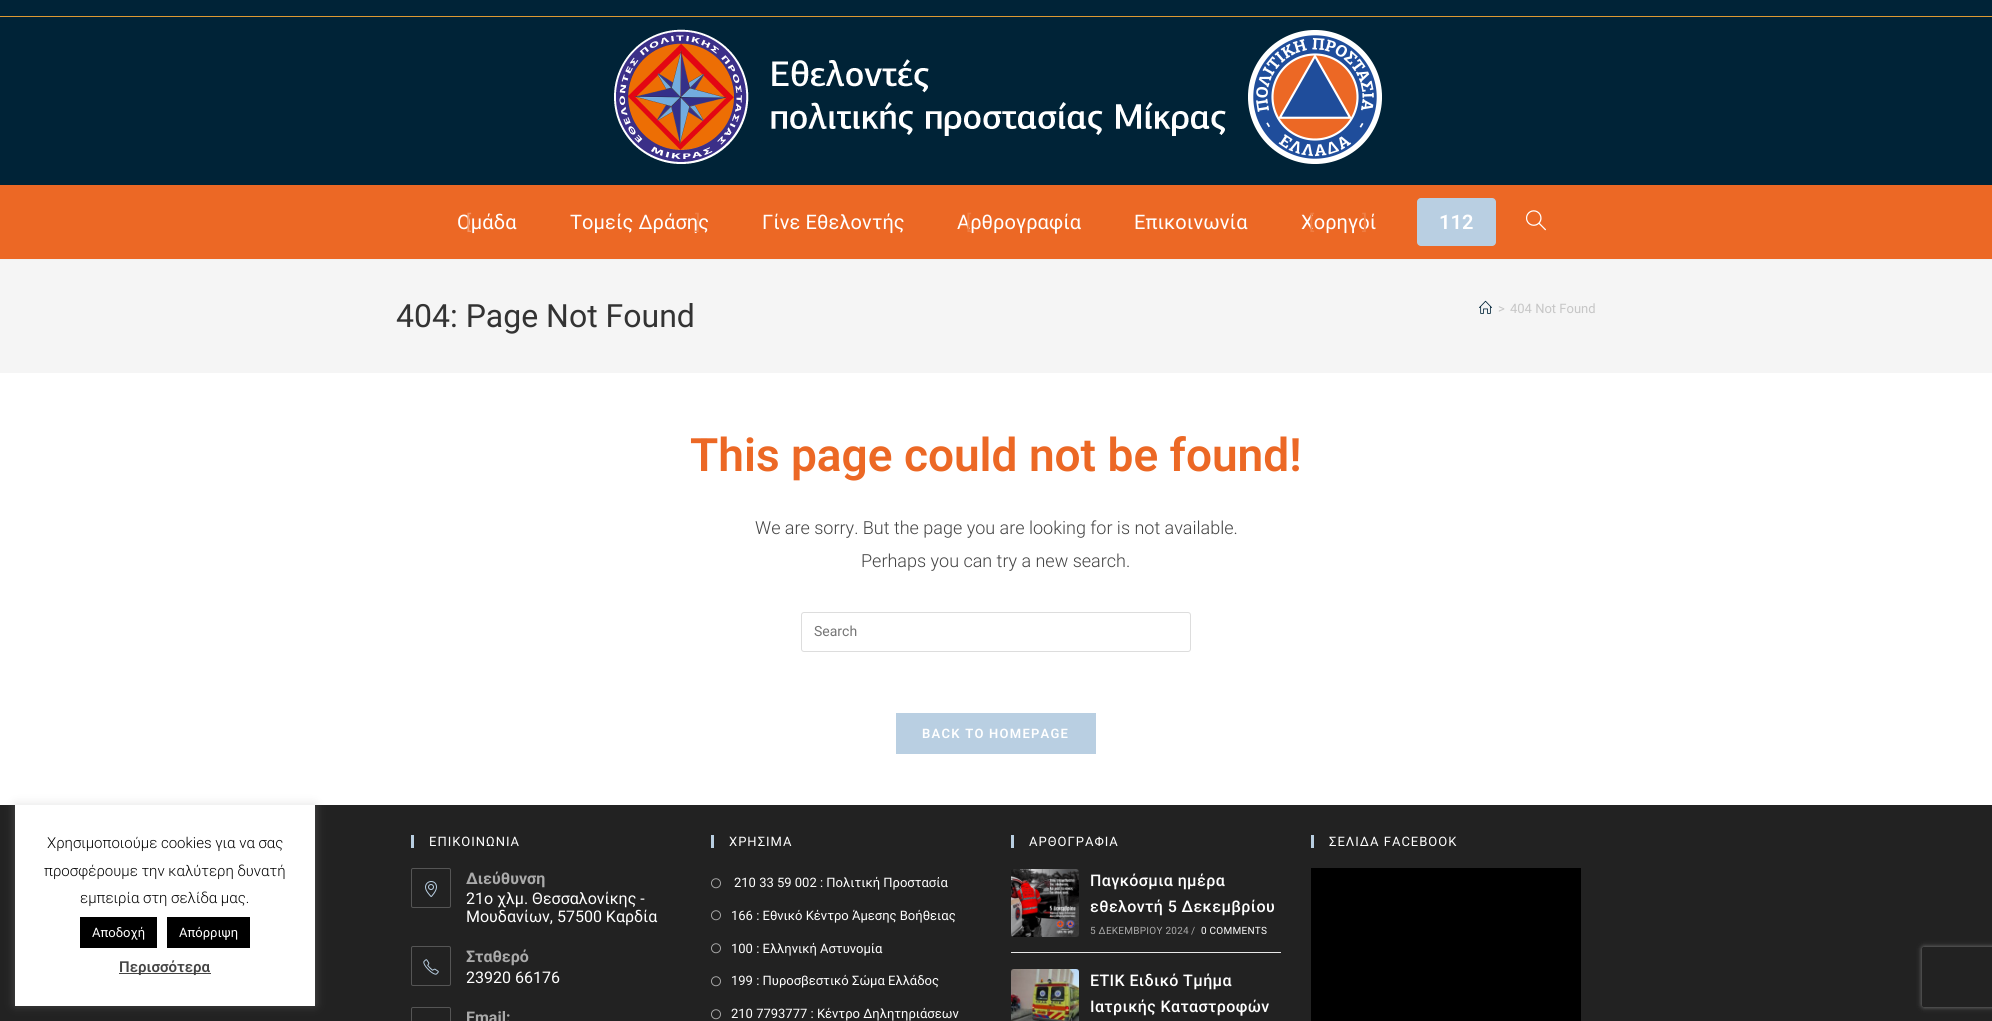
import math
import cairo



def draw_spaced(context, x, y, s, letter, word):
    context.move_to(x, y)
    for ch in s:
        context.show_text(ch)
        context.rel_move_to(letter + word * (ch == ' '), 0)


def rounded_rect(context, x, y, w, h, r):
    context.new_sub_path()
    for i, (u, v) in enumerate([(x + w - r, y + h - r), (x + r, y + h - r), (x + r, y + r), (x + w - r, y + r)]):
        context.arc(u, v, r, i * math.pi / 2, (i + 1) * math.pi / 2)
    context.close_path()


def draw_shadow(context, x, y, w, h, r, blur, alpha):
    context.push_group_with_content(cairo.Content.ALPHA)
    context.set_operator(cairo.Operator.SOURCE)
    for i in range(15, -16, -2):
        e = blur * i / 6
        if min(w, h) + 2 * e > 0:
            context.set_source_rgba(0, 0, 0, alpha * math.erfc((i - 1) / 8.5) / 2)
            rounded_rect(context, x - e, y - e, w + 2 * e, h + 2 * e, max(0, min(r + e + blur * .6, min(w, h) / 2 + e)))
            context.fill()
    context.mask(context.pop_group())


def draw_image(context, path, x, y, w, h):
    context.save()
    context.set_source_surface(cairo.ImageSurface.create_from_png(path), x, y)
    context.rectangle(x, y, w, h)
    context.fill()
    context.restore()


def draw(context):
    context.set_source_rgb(1, 1, 1)
    context.paint()
    context.set_source_rgb(34 / 255, 34 / 255, 34 / 255)
    context.rectangle(0, 805, 1992, 216)
    context.fill()
    context.set_source_rgb(172 / 255, 171 / 255, 171 / 255)
    draw_shadow(context, 15, 804, 300, 201, 0, 5, 0.3)
    context.set_source_rgb(1, 1, 1)
    context.rectangle(15, 805, 300, 201)
    context.fill()
    context.set_source_rgb(0, 0, 0)
    context.rectangle(80, 917, 77, 31)
    context.fill()
    context.rectangle(167, 917, 83, 31)
    context.fill()
    context.set_source_rgb(68 / 255, 68 / 255, 68 / 255)
    context.rectangle(119, 973, 92, 1)
    context.fill()
    context.set_source_rgb(0, 35 / 255, 55 / 255)
    context.rectangle(0, 0, 1992, 16)
    context.fill()
    context.set_source_rgb(221 / 255, 153 / 255, 51 / 255)
    context.rectangle(0, 16, 1992, 1)
    context.fill()
    context.set_source_rgb(0, 35 / 255, 55 / 255)
    context.rectangle(0, 17, 1992, 168)
    context.fill()
    context.set_source_rgb(241 / 255, 241 / 255, 241 / 255)
    context.rectangle(0, 259, 1992, 1)
    context.fill()
    draw_image(context, "images/1.png", 614, 29, 768, 135)
    context.set_source_rgb(236 / 255, 104 / 255, 37 / 255)
    context.rectangle(0, 185, 1992, 74)
    context.fill()
    context.set_source_rgb(185 / 255, 207 / 255, 226 / 255)
    rounded_rect(context, 1417, 198, 79, 48, 4)
    context.fill()
    draw_image(context, "images/2.png", 1526, 210, 20, 21)
    context.set_source_rgb(245 / 255, 245 / 255, 245 / 255)
    context.rectangle(0, 260, 1992, 113)
    context.fill()
    draw_image(context, "images/3.png", 1479, 300, 13, 14)
    rounded_rect(context, 801.5, 612.5, 389, 39, 2.5)
    context.set_source_rgb(221 / 255, 221 / 255, 221 / 255)
    context.set_line_width(1)
    context.stroke()
    context.set_source_rgb(185 / 255, 207 / 255, 226 / 255)
    context.rectangle(896, 713, 200, 41)
    context.fill()
    context.rectangle(411, 835, 3, 13)
    context.fill()
    rounded_rect(context, 411.5, 868.5, 39, 39, 1.5)
    context.set_source_rgb(85 / 255, 85 / 255, 85 / 255)
    context.stroke()
    draw_image(context, "images/4.png", 425, 881, 12, 16)
    rounded_rect(context, 411.5, 946.5, 39, 39, 1.5)
    context.stroke()
    draw_image(context, "images/5.png", 423, 959, 16, 16)
    rounded_rect(context, 411.5, 1007.5, 39, 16, 1.5)
    context.stroke()
    context.set_source_rgb(185 / 255, 207 / 255, 226 / 255)
    context.rectangle(711, 835, 3, 13)
    context.fill()
    draw_image(context, "images/6.png", 711, 878, 10, 11)
    draw_image(context, "images/6.png", 711, 910, 10, 11)
    draw_image(context, "images/6.png", 711, 943, 10, 11)
    draw_image(context, "images/6.png", 711, 976, 10, 11)
    draw_image(context, "images/6.png", 711, 1009, 10, 11)
    context.rectangle(1011, 835, 3, 13)
    context.fill()
    draw_image(context, "images/7.png", 1011, 869, 68, 68)
    context.set_source_rgb(233 / 255, 233 / 255, 233 / 255)
    context.rectangle(1011, 952, 270, 1)
    context.fill()
    draw_image(context, "images/8.png", 1011, 969, 68, 52)
    context.set_source_rgb(185 / 255, 207 / 255, 226 / 255)
    context.rectangle(1311, 835, 3, 13)
    context.fill()
    context.set_source_rgb(0, 0, 0)
    context.rectangle(1311, 868, 270, 153)
    context.fill()
    context.save()
    context.set_fill_rule(cairo.FillRule.EVEN_ODD)
    context.new_path()
    context.move_to(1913, 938)
    context.line_to(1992, 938)
    context.line_to(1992, 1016)
    context.line_to(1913, 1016)
    context.close_path()
    context.move_to(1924, 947)
    context.line_to(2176, 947)
    context.curve_to(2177, 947, 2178, 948, 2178, 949)
    context.line_to(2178, 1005)
    context.curve_to(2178, 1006, 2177, 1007, 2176, 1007)
    context.line_to(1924, 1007)
    context.curve_to(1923, 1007, 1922, 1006, 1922, 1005)
    context.line_to(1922, 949)
    context.curve_to(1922, 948, 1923, 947, 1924, 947)
    context.close_path()
    context.clip()
    context.set_source_rgb(128 / 255, 128 / 255, 128 / 255)
    draw_shadow(context, 1922, 947, 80, 60, 2, 2.5, 1)
    context.restore()
    context.select_font_face("Roboto Light")
    context.set_font_size(15)
    context.move_to(47, 848)
    context.show_text("Χρησιμοποιούμε cookies για να σας")
    context.move_to(44, 876)
    context.show_text("προσφέρουμε την καλύτερη δυνατή")
    context.move_to(80, 903)
    context.show_text("εμπειρία στη σελίδα μας.")
    context.select_font_face("Roboto")
    context.set_font_size(13)
    context.set_source_rgb(1, 1, 1)
    context.move_to(92, 937)
    context.show_text("Αποδοχή")
    context.move_to(179, 937)
    context.show_text("Απόρριψη")
    context.select_font_face("Roboto SemiBold")
    context.set_font_size(15)
    context.set_source_rgb(68 / 255, 68 / 255, 68 / 255)
    context.move_to(119, 972)
    context.show_text("Περισσότερα")
    context.select_font_face("Roboto")
    context.set_font_size(20)
    context.set_source_rgb(1, 1, 1)
    draw_spaced(context, 457, 229, "Ομάδα", 0.1, 0)
    context.set_source_rgb(242 / 255, 150 / 255, 104 / 255)
    draw_spaced(context, 466, 229, "[", 0.1, 0)
    context.set_source_rgb(1, 1, 1)
    draw_spaced(context, 570, 229, "Τομείς Δράσης", 0.1, 0)
    context.set_source_rgb(239 / 255, 126 / 255, 68 / 255)
    draw_spaced(context, 695, 229, "]", 0.1, 0)
    context.set_source_rgb(1, 1, 1)
    draw_spaced(context, 762, 229, "Γίνε Εθελοντής", 0.1, 0)
    draw_spaced(context, 957, 229, "Αρθρογραφία", 0.1, 0)
    context.set_source_rgb(239 / 255, 126 / 255, 68 / 255)
    draw_spaced(context, 966, 229, "[", 0.1, 0)
    context.set_source_rgb(1, 1, 1)
    draw_spaced(context, 1134, 229, "Επικοινωνία", 0.1, 0)
    draw_spaced(context, 1301, 229, "Χορηγοί", 0.1, 0)
    context.set_source_rgb(239 / 255, 126 / 255, 68 / 255)
    draw_spaced(context, 1362, 229, "]", 0.1, 0)
    draw_spaced(context, 1309, 229, "[", 0.1, 0)
    context.select_font_face("Roboto SemiBold")
    context.set_source_rgb(1, 1, 1)
    draw_spaced(context, 1439, 229, "112", 0.1, 0)
    context.select_font_face("Roboto")
    context.set_font_size(32)
    context.set_source_rgb(51 / 255, 51 / 255, 51 / 255)
    context.move_to(396, 327)
    context.show_text("404: Page Not Found")
    context.set_font_size(13)
    context.set_source_rgb(198 / 255, 198 / 255, 198 / 255)
    context.move_to(1498, 313)
    context.show_text(">")
    context.move_to(1510, 313)
    context.show_text("404 Not Found")
    context.select_font_face("Roboto SemiBold")
    context.set_font_size(46)
    context.set_source_rgb(236 / 255, 104 / 255, 37 / 255)
    context.move_to(690, 471)
    context.show_text("This page could not be found!")
    context.select_font_face("Roboto Light")
    context.set_font_size(18)
    context.set_source_rgb(68 / 255, 68 / 255, 68 / 255)
    context.move_to(755, 534)
    context.show_text("We are sorry. But the page you are looking for is not available.")
    context.move_to(861, 567)
    context.show_text("Perhaps you can try a new search.")
    context.select_font_face("Roboto")
    context.set_font_size(14)
    context.set_source_rgb(117 / 255, 117 / 255, 117 / 255)
    context.move_to(814, 636)
    context.show_text("Search")
    context.select_font_face("Roboto SemiBold")
    context.set_font_size(13)
    context.set_source_rgb(1, 1, 1)
    draw_spaced(context, 922, 738, "BACK TO HOMEPAGE", 1.25, 0)
    context.select_font_face("Roboto")
    draw_spaced(context, 429, 846, "ΕΠΙΚΟΙΝΩΝΙΑ", 1, 0)
    context.select_font_face("Roboto", cairo.FontSlant.NORMAL, cairo.FontWeight.BOLD)
    context.set_font_size(16)
    context.set_source_rgb(170 / 255, 170 / 255, 170 / 255)
    context.move_to(466, 884)
    context.show_text("Διεύθυνση")
    context.select_font_face("Roboto")
    context.set_source_rgb(1, 1, 1)
    context.move_to(466, 904)
    context.show_text("21ο χλμ. Θεσσαλονίκης -")
    context.move_to(466, 922)
    context.show_text("Μουδανίων, 57500 Καρδία")
    context.select_font_face("Roboto", cairo.FontSlant.NORMAL, cairo.FontWeight.BOLD)
    context.set_source_rgb(170 / 255, 170 / 255, 170 / 255)
    context.move_to(466, 962)
    context.show_text("Σταθερό")
    context.select_font_face("Roboto")
    context.set_source_rgb(1, 1, 1)
    context.move_to(466, 983)
    context.show_text("23920 66176")
    context.select_font_face("Roboto", cairo.FontSlant.NORMAL, cairo.FontWeight.BOLD)
    context.set_source_rgb(170 / 255, 170 / 255, 170 / 255)
    context.move_to(466, 1023)
    context.show_text("Email:")
    context.select_font_face("Roboto")
    context.set_font_size(13)
    context.set_source_rgb(1, 1, 1)
    draw_spaced(context, 729, 846, "ΧΡΗΣΙΜΑ", 1, 0)
    context.move_to(734, 887)
    context.show_text("210 33 59 002 : Πολιτική Προστασία")
    context.move_to(731, 920)
    context.show_text("166 : Εθνικό Κέντρο Άμεσης Βοήθειας")
    context.move_to(731, 953)
    context.show_text("100 : Ελληνική Αστυνομία")
    context.move_to(731, 985)
    context.show_text("199 : Πυροσβεστικό Σώμα Ελλάδος")
    context.move_to(731, 1018)
    context.show_text("210 7793777 : Kέντρο Δηλητηριάσεων")
    draw_spaced(context, 1029, 846, "ΑΡΘΟΓΡΑΦΙΑ", 1, 0)
    context.select_font_face("Roboto Medium")
    context.set_font_size(16)
    draw_spaced(context, 1090, 886, "Παγκόσμια ημέρα", 0.4, 0)
    draw_spaced(context, 1090, 912, "εθελοντή 5 Δεκεμβρίου", 0.4, 0)
    context.select_font_face("Roboto")
    context.set_font_size(10)
    context.set_source_rgb(170 / 255, 170 / 255, 170 / 255)
    draw_spaced(context, 1090, 934, "5 ΔΕΚΕΜΒΡΙΟΥ 2024", 0.25, 0)
    draw_spaced(context, 1191, 934, "/", 0.25, 0)
    context.set_source_rgb(1, 1, 1)
    draw_spaced(context, 1201, 934, "0 COMMENTS", 0.25, 0)
    context.select_font_face("Roboto Medium")
    context.set_font_size(16)
    draw_spaced(context, 1090, 986, "ΕΤΙΚ Ειδικό Τμήμα", 0.4, 0)
    draw_spaced(context, 1090, 1012, "Ιατρικής Καταστροφών", 0.4, 0)
    context.select_font_face("Roboto")
    context.set_font_size(13)
    draw_spaced(context, 1329, 846, "ΣΕΛΙΔΑ FACEBOOK", 1, 0)


surface = cairo.ImageSurface(cairo.Format.RGB24, 1992, 1021)
context = cairo.Context(surface)
options = cairo.FontOptions()
options.set_hint_metrics(cairo.HintMetrics.OFF)
options.set_hint_style(cairo.HintStyle.NONE)
context.set_font_options(options)
context.set_miter_limit(4)
draw(context)
surface.write_to_png("out.png")
